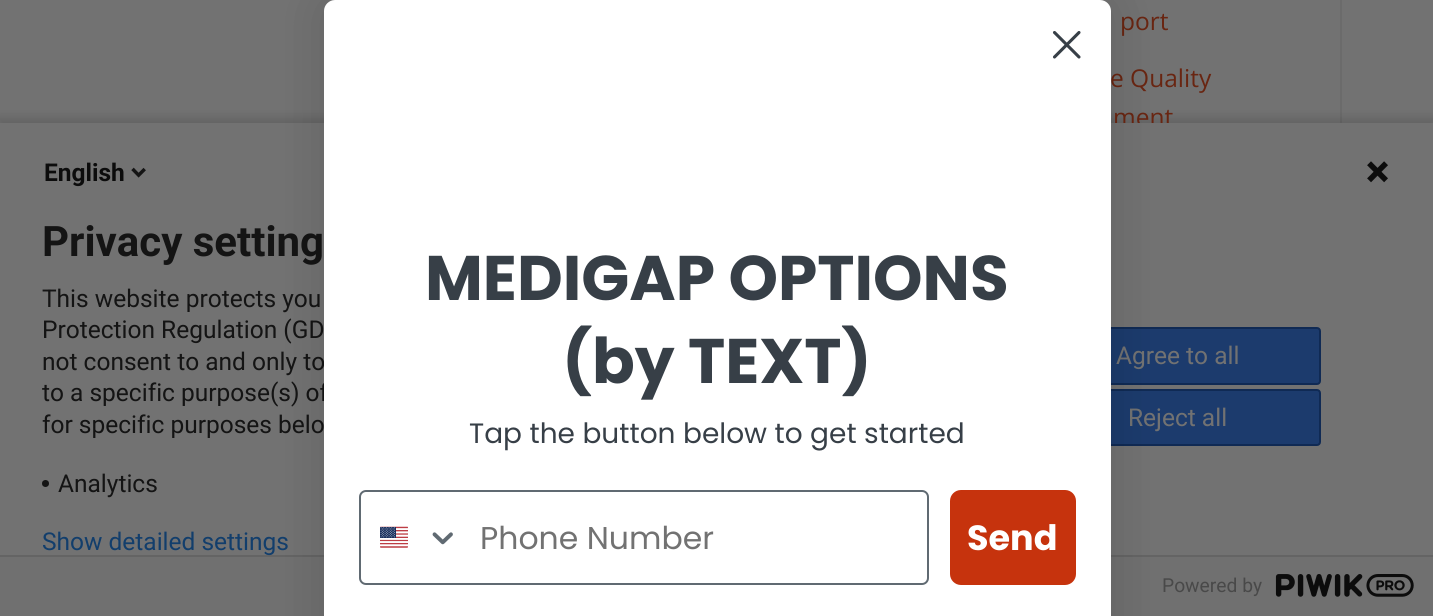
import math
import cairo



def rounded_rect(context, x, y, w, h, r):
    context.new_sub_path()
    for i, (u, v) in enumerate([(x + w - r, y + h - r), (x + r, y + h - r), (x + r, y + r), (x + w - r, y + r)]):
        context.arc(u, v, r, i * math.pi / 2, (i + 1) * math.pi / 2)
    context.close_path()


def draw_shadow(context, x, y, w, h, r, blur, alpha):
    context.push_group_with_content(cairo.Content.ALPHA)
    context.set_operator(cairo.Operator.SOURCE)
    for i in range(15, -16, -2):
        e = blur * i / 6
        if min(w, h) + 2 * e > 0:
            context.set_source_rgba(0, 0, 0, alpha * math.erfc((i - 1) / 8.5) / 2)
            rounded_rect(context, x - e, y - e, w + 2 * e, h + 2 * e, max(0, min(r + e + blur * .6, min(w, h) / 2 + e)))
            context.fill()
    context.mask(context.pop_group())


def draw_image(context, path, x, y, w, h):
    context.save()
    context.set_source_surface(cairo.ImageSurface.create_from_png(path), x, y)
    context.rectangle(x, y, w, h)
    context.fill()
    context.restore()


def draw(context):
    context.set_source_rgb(114 / 255, 114 / 255, 114 / 255)
    context.paint()
    context.rectangle(983, -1, 358, 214)
    context.set_source_rgb(107 / 255, 107 / 255, 107 / 255)
    context.stroke()
    context.set_source_rgb(12 / 255, 12 / 255, 12 / 255)
    draw_shadow(context, -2, 117, 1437, 497, 0, 4.5, 0.14)
    context.set_source_rgb(112 / 255, 112 / 255, 112 / 255)
    context.rectangle(0, 557, 1433, 59)
    context.fill()
    context.set_source_rgb(100 / 255, 100 / 255, 100 / 255)
    context.rectangle(0, 555, 1433, 2)
    context.fill()
    draw_image(context, "images/3.png", 1275, 574, 139, 23)
    context.select_font_face("Open Sans")
    context.set_font_size(24.5)
    context.set_source_rgb(105 / 255, 37 / 255, 17 / 255)
    context.move_to(1120, 30)
    context.show_text("port")
    context.move_to(1110, 87)
    context.show_text("e Quality")
    context.move_to(1113, 126)
    context.show_text("ment")
    context.set_source_rgb(114 / 255, 114 / 255, 114 / 255)
    context.rectangle(0, 123, 1433, 432)
    context.fill()
    context.select_font_face("Roboto", cairo.FontSlant.NORMAL, cairo.FontWeight.BOLD)
    context.set_source_rgb(12 / 255, 12 / 255, 12 / 255)
    context.move_to(44, 181)
    context.show_text("English")
    draw_image(context, "images/1.png", 131, 167, 15, 11)
    draw_image(context, "images/2.png", 1367, 161, 21, 22)
    context.set_font_size(42)
    context.set_source_rgb(20 / 255, 20 / 255, 20 / 255)
    context.move_to(42, 256)
    context.show_text("Privacy setting")
    context.select_font_face("Roboto")
    context.set_font_size(24.5)
    context.move_to(42, 307)
    context.show_text("This website protects you")
    context.move_to(42, 338)
    context.show_text("Protection Regulation (GD")
    context.move_to(42, 370)
    context.show_text("not consent to and only to")
    context.move_to(42, 401)
    context.show_text("to a specific purpose(s) of")
    context.move_to(42, 433)
    context.show_text("for specific purposes belo")
    context.new_path()
    context.arc(45.5, 483.5, 3.5, 0, 2 * math.pi)
    context.fill()
    context.move_to(58, 492)
    context.show_text("Analytics")
    context.set_source_rgb(28 / 255, 59 / 255, 109 / 255)
    rounded_rect(context, 1035, 328, 285, 56, 3)
    context.fill_preserve()
    context.set_source_rgb(16 / 255, 42 / 255, 84 / 255)
    context.stroke()
    context.set_source_rgb(114 / 255, 114 / 255, 114 / 255)
    context.move_to(1116, 364)
    context.show_text("Agree to all")
    context.set_source_rgb(28 / 255, 59 / 255, 109 / 255)
    rounded_rect(context, 1035, 390, 285, 55, 3)
    context.fill_preserve()
    context.set_source_rgb(16 / 255, 42 / 255, 84 / 255)
    context.stroke()
    context.set_source_rgb(114 / 255, 114 / 255, 114 / 255)
    context.move_to(1128, 426)
    context.show_text("Reject all")
    context.set_source_rgb(18 / 255, 62 / 255, 108 / 255)
    context.move_to(42, 550)
    context.show_text("Show detailed settings")
    context.set_font_size(19.25)
    context.set_source_rgb(73 / 255, 73 / 255, 73 / 255)
    context.move_to(1162, 592)
    context.show_text("Powered by")
    context.set_source_rgb(0, 0, 0)
    draw_shadow(context, 324, 0, 787, 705, 11, 26, 0.15)
    context.set_source_rgb(1, 1, 1)
    context.new_path()
    context.move_to(335, 0)
    context.line_to(1100, 0)
    context.curve_to(1106, 0, 1111, 5, 1111, 11)
    context.line_to(1111, 616)
    context.line_to(324, 616)
    context.line_to(324, 11)
    context.curve_to(324, 5, 329, 0, 335, 0)
    context.close_path()
    context.fill()
    context.new_path()
    context.move_to(1054.5, 32.5)
    context.line_to(1079, 57)
    context.move_to(1054.5, 57)
    context.line_to(1079, 32.5)
    context.close_path()
    context.set_source_rgb(55 / 255, 63 / 255, 71 / 255)
    context.set_line_width(3.1)
    context.set_line_cap(cairo.LineCap.ROUND)
    context.set_line_join(cairo.LineJoin.ROUND)
    context.stroke()
    context.select_font_face("Poppins", cairo.FontSlant.NORMAL, cairo.FontWeight.BOLD)
    context.set_font_size(63)
    context.move_to(425, 300)
    context.show_text("MEDIGAP OPTIONS")
    context.move_to(562, 383)
    context.show_text("(by TEXT)")
    context.select_font_face("Poppins")
    context.set_font_size(28)
    context.move_to(469, 443)
    context.show_text("Tap the button below to get started")
    rounded_rect(context, 360, 491, 568, 93, 6)
    context.set_source_rgb(96 / 255, 106 / 255, 114 / 255)
    context.set_line_width(2)
    context.set_line_cap(cairo.LineCap.BUTT)
    context.set_line_join(cairo.LineJoin.MITER)
    context.stroke()
    draw_image(context, "images/4.png", 380, 526, 28, 22)
    draw_image(context, "images/5.png", 432, 532, 21, 13)
    context.set_font_size(31.5)
    context.set_source_rgb(114 / 255, 114 / 255, 114 / 255)
    context.move_to(480, 549)
    context.show_text("Phone Number")
    context.set_source_rgb(198 / 255, 51 / 255, 13 / 255)
    rounded_rect(context, 950, 490, 126, 95, 11)
    context.fill()
    context.select_font_face("Poppins", cairo.FontSlant.NORMAL, cairo.FontWeight.BOLD)
    context.set_font_size(35)
    context.set_source_rgb(1, 1, 1)
    context.move_to(967, 550)
    context.show_text("Send")


surface = cairo.ImageSurface(cairo.Format.RGB24, 1433, 616)
context = cairo.Context(surface)
options = cairo.FontOptions()
options.set_hint_metrics(cairo.HintMetrics.OFF)
options.set_hint_style(cairo.HintStyle.NONE)
context.set_font_options(options)
context.set_miter_limit(4)
draw(context)
surface.write_to_png("out.png")
